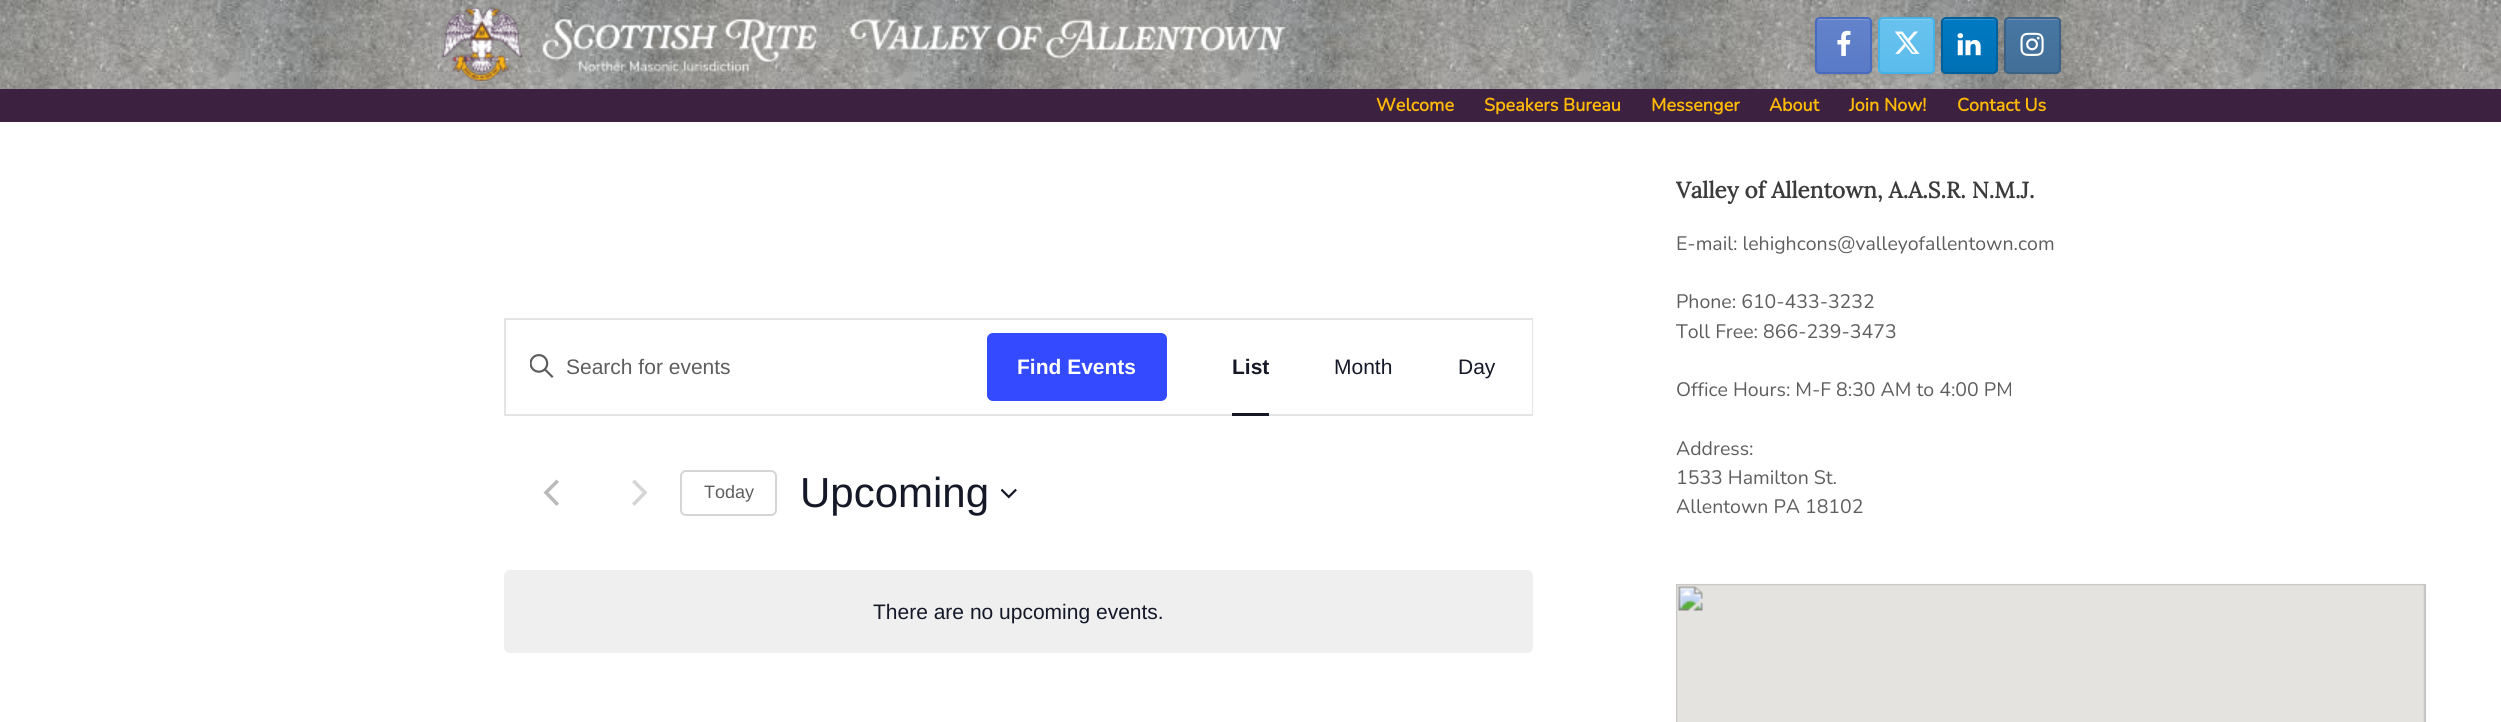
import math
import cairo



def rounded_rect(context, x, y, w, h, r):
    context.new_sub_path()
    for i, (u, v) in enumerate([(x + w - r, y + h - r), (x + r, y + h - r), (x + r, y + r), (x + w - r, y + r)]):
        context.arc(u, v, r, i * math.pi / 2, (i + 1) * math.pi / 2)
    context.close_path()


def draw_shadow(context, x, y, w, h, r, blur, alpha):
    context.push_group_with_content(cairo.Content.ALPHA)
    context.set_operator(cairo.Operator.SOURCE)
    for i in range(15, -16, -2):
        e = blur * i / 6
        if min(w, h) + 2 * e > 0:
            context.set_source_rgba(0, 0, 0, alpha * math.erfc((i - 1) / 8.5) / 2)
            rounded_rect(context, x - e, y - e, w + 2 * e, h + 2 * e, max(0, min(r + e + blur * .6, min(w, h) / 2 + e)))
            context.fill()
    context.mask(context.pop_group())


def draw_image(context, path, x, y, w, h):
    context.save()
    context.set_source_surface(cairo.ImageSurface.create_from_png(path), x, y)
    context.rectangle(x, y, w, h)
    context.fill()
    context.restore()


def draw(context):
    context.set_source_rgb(1, 1, 1)
    context.paint()
    draw_image(context, "images/1.png", 0, 0, 2501, 89)
    draw_image(context, "images/2.png", 441, 7, 845, 74)
    context.set_source_rgb(0, 0, 0)
    draw_shadow(context, 1815, 18, 57, 57, 5, 1, 0.1)
    context.save()
    rounded_rect(context, 1815, 17, 57, 57, 5)
    context.clip()
    gradient = cairo.LinearGradient(1844, 72, 1844, 18)
    gradient.add_color_stop_rgba(0, 89 / 255, 122 / 255, 199 / 255, 1)
    gradient.add_color_stop_rgba(1, 100 / 255, 131 / 255, 203 / 255, 1)
    context.set_source(gradient)
    context.rectangle(1815, 18, 57, 54)
    context.fill()
    context.restore()
    context.set_source_rgba(1, 1, 1, 0.2)
    context.new_path()
    context.move_to(1820, 20)
    context.line_to(1860, 20)
    context.curve_to(1864, 20, 1870, 19, 1870, 22)
    context.line_to(1870, 71)
    context.curve_to(1871, 71, 1871, 70, 1871, 69)
    context.line_to(1871, 21)
    context.curve_to(1871, 19, 1870, 18, 1868, 18)
    context.line_to(1820, 18)
    context.curve_to(1818, 18, 1817, 19, 1817, 21)
    context.close_path()
    context.fill()
    rounded_rect(context, 1816, 18, 55, 55, 4)
    context.set_source_rgb(70 / 255, 107 / 255, 193 / 255)
    context.stroke()
    draw_image(context, "images/3.png", 1837, 30, 14, 26)
    context.set_source_rgb(0, 0, 0)
    draw_shadow(context, 1878, 18, 57, 57, 5, 1, 0.1)
    context.save()
    rounded_rect(context, 1878, 17, 57, 57, 5)
    context.clip()
    gradient = cairo.LinearGradient(1907, 72, 1907, 18)
    gradient.add_color_stop_rgba(0, 91 / 255, 188 / 255, 236 / 255, 1)
    gradient.add_color_stop_rgba(1, 105 / 255, 194 / 255, 238 / 255, 1)
    context.set_source(gradient)
    context.rectangle(1878, 18, 57, 54)
    context.fill()
    context.restore()
    context.set_source_rgb(135 / 255, 206 / 255, 241 / 255)
    context.new_path()
    context.move_to(1882, 20)
    context.line_to(1930, 20)
    context.curve_to(1932, 20, 1934, 21, 1934, 22)
    context.curve_to(1934, 16, 1927, 18, 1923, 18)
    context.line_to(1891, 18)
    context.curve_to(1887, 18, 1880, 16, 1880, 22)
    context.curve_to(1880, 21, 1881, 20, 1882, 20)
    context.close_path()
    context.fill()
    rounded_rect(context, 1879, 18, 55, 55, 4)
    context.set_source_rgb(68 / 255, 179 / 255, 233 / 255)
    context.stroke()
    draw_image(context, "images/4.png", 1894, 31, 26, 23)
    context.set_source_rgb(0, 0, 0)
    draw_shadow(context, 1941, 18, 57, 57, 5, 1, 0.1)
    context.save()
    rounded_rect(context, 1941, 17, 57, 57, 5)
    context.clip()
    gradient = cairo.LinearGradient(1970, 72, 1970, 18)
    gradient.add_color_stop_rgba(0, 0, 112 / 255, 180 / 255, 1)
    gradient.add_color_stop_rgba(1, 0, 122 / 255, 195 / 255, 1)
    context.set_source(gradient)
    context.rectangle(1941, 18, 57, 54)
    context.fill()
    context.restore()
    context.set_source_rgba(1, 1, 1, 0.2)
    context.new_path()
    context.move_to(1946, 20)
    context.line_to(1986, 20)
    context.curve_to(1990, 20, 1996, 19, 1996, 22)
    context.line_to(1996, 71)
    context.curve_to(1997, 71, 1997, 70, 1997, 69)
    context.line_to(1997, 21)
    context.curve_to(1997, 19, 1996, 18, 1994, 18)
    context.line_to(1946, 18)
    context.curve_to(1944, 18, 1943, 19, 1943, 21)
    context.close_path()
    context.fill()
    rounded_rect(context, 1942, 18, 55, 55, 4)
    context.set_source_rgb(0, 96 / 255, 155 / 255)
    context.stroke()
    draw_image(context, "images/5.png", 1957, 33, 24, 23)
    context.set_source_rgb(0, 0, 0)
    draw_shadow(context, 2004, 18, 57, 57, 5, 1, 0.1)
    context.save()
    rounded_rect(context, 2004, 17, 57, 57, 5)
    context.clip()
    gradient = cairo.LinearGradient(2033, 72, 2033, 18)
    gradient.add_color_stop_rgba(0, 66 / 255, 111 / 255, 152 / 255, 1)
    gradient.add_color_stop_rgba(1, 71 / 255, 119 / 255, 163 / 255, 1)
    context.set_source(gradient)
    context.rectangle(2004, 18, 57, 54)
    context.fill()
    context.restore()
    context.set_source_rgb(108 / 255, 146 / 255, 181 / 255)
    context.new_path()
    context.move_to(2008, 20)
    context.line_to(2056, 20)
    context.curve_to(2058, 20, 2060, 21, 2060, 22)
    context.curve_to(2060, 16, 2053, 18, 2049, 18)
    context.line_to(2017, 18)
    context.curve_to(2013, 18, 2006, 16, 2006, 22)
    context.curve_to(2006, 21, 2007, 20, 2008, 20)
    context.close_path()
    context.fill()
    rounded_rect(context, 2005, 18, 55, 55, 4)
    context.set_source_rgb(58 / 255, 98 / 255, 134 / 255)
    context.stroke()
    draw_image(context, "images/6.png", 2020, 32, 24, 24)
    context.set_source_rgb(61 / 255, 33 / 255, 64 / 255)
    context.rectangle(0, 89, 2501, 33)
    context.fill()
    context.rectangle(505, 319, 1027, 96)
    context.set_source_rgb(228 / 255, 228 / 255, 228 / 255)
    context.stroke()
    draw_image(context, "images/7.png", 530, 354, 24, 24)
    context.set_source_rgb(51 / 255, 74 / 255, 1)
    rounded_rect(context, 987, 333, 180, 68, 6)
    context.fill()
    context.set_source_rgb(1, 1, 1)
    context.rectangle(1531, 320, 1, 94)
    context.fill()
    context.set_source_rgb(20 / 255, 24 / 255, 39 / 255)
    context.rectangle(1232, 413, 37, 3)
    context.fill()
    context.set_source_rgb(186 / 255, 186 / 255, 186 / 255)
    context.new_path()
    context.move_to(559, 503.5)
    context.line_to(556.5, 506)
    context.line_to(543.5, 492.5)
    context.line_to(556.5, 479.5)
    context.line_to(559, 482)
    context.line_to(548.5, 492.5)
    context.close_path()
    context.fill()
    context.set_source_rgb(213 / 255, 213 / 255, 213 / 255)
    context.new_path()
    context.move_to(632, 482)
    context.line_to(634.5, 479.5)
    context.line_to(647.5, 492.5)
    context.line_to(634.5, 506)
    context.line_to(632, 503.5)
    context.line_to(642.5, 492.5)
    context.close_path()
    context.fill()
    rounded_rect(context, 681, 471, 95, 44, 5)
    context.stroke()
    draw_image(context, "images/8.png", 1001, 488, 16, 11)
    context.set_source_rgb(239 / 255, 239 / 255, 240 / 255)
    rounded_rect(context, 504, 570, 1029, 83, 6)
    context.fill()
    draw_image(context, "images/9.png", 1675, 583, 751, 139)
    context.select_font_face("Nunito", cairo.FontSlant.NORMAL, cairo.FontWeight.BOLD)
    context.set_font_size(18)
    context.set_source_rgb(1, 185 / 255, 7 / 255)
    context.move_to(1376, 111)
    context.show_text("Welcome")
    context.move_to(1484, 111)
    context.show_text("Speakers Bureau")
    context.move_to(1651, 111)
    context.show_text("Messenger")
    context.move_to(1769, 111)
    context.show_text("About")
    context.move_to(1849, 111)
    context.show_text("Join Now!")
    context.move_to(1957, 111)
    context.show_text("Contact Us")
    context.select_font_face("Liberation Sans")
    context.set_font_size(21)
    context.set_source_rgb(94 / 255, 94 / 255, 94 / 255)
    context.move_to(566, 374)
    context.show_text("Search for events")
    context.select_font_face("Liberation Sans", cairo.FontSlant.NORMAL, cairo.FontWeight.BOLD)
    context.set_source_rgb(1, 1, 1)
    context.move_to(1017, 374)
    context.show_text("Find Events")
    context.set_source_rgb(20 / 255, 24 / 255, 39 / 255)
    context.move_to(1232, 374)
    context.show_text("List")
    context.select_font_face("Liberation Sans")
    context.move_to(1334, 374)
    context.show_text("Month")
    context.move_to(1458, 374)
    context.show_text("Day")
    context.set_font_size(18)
    context.set_source_rgb(94 / 255, 94 / 255, 94 / 255)
    context.move_to(704, 498)
    context.show_text("Today")
    context.set_font_size(42)
    context.set_source_rgb(20 / 255, 24 / 255, 39 / 255)
    context.move_to(800, 507)
    context.show_text("Upcoming")
    context.set_font_size(21)
    context.move_to(873, 619)
    context.show_text("There are no upcoming events.")
    context.select_font_face("Lora", cairo.FontSlant.NORMAL, cairo.FontWeight.BOLD)
    context.set_font_size(22.5)
    context.set_source_rgb(59 / 255, 59 / 255, 59 / 255)
    context.move_to(1676, 198)
    context.show_text("Valley of Allentown, A.A.S.R. N.M.J.")
    context.select_font_face("Nunito ExtraLight")
    context.set_font_size(19.5)
    context.set_source_rgb(94 / 255, 94 / 255, 94 / 255)
    context.move_to(1676, 250)
    context.show_text("E-mail: lehighcons@valleyofallentown.com")
    context.move_to(1676, 308)
    context.show_text("Phone: 610-433-3232")
    context.move_to(1676, 338)
    context.show_text("Toll Free: 866-239-3473")
    context.move_to(1676, 396)
    context.show_text("Office Hours: M-F 8:30 AM to 4:00 PM")
    context.move_to(1676, 455)
    context.show_text("Address:")
    context.move_to(1676, 484)
    context.show_text("1533 Hamilton St.")
    context.move_to(1676, 513)
    context.show_text("Allentown PA 18102")


surface = cairo.ImageSurface(cairo.Format.RGB24, 2501, 722)
context = cairo.Context(surface)
options = cairo.FontOptions()
options.set_hint_metrics(cairo.HintMetrics.OFF)
options.set_hint_style(cairo.HintStyle.NONE)
context.set_font_options(options)
context.set_miter_limit(4)
draw(context)
surface.write_to_png("out.png")
